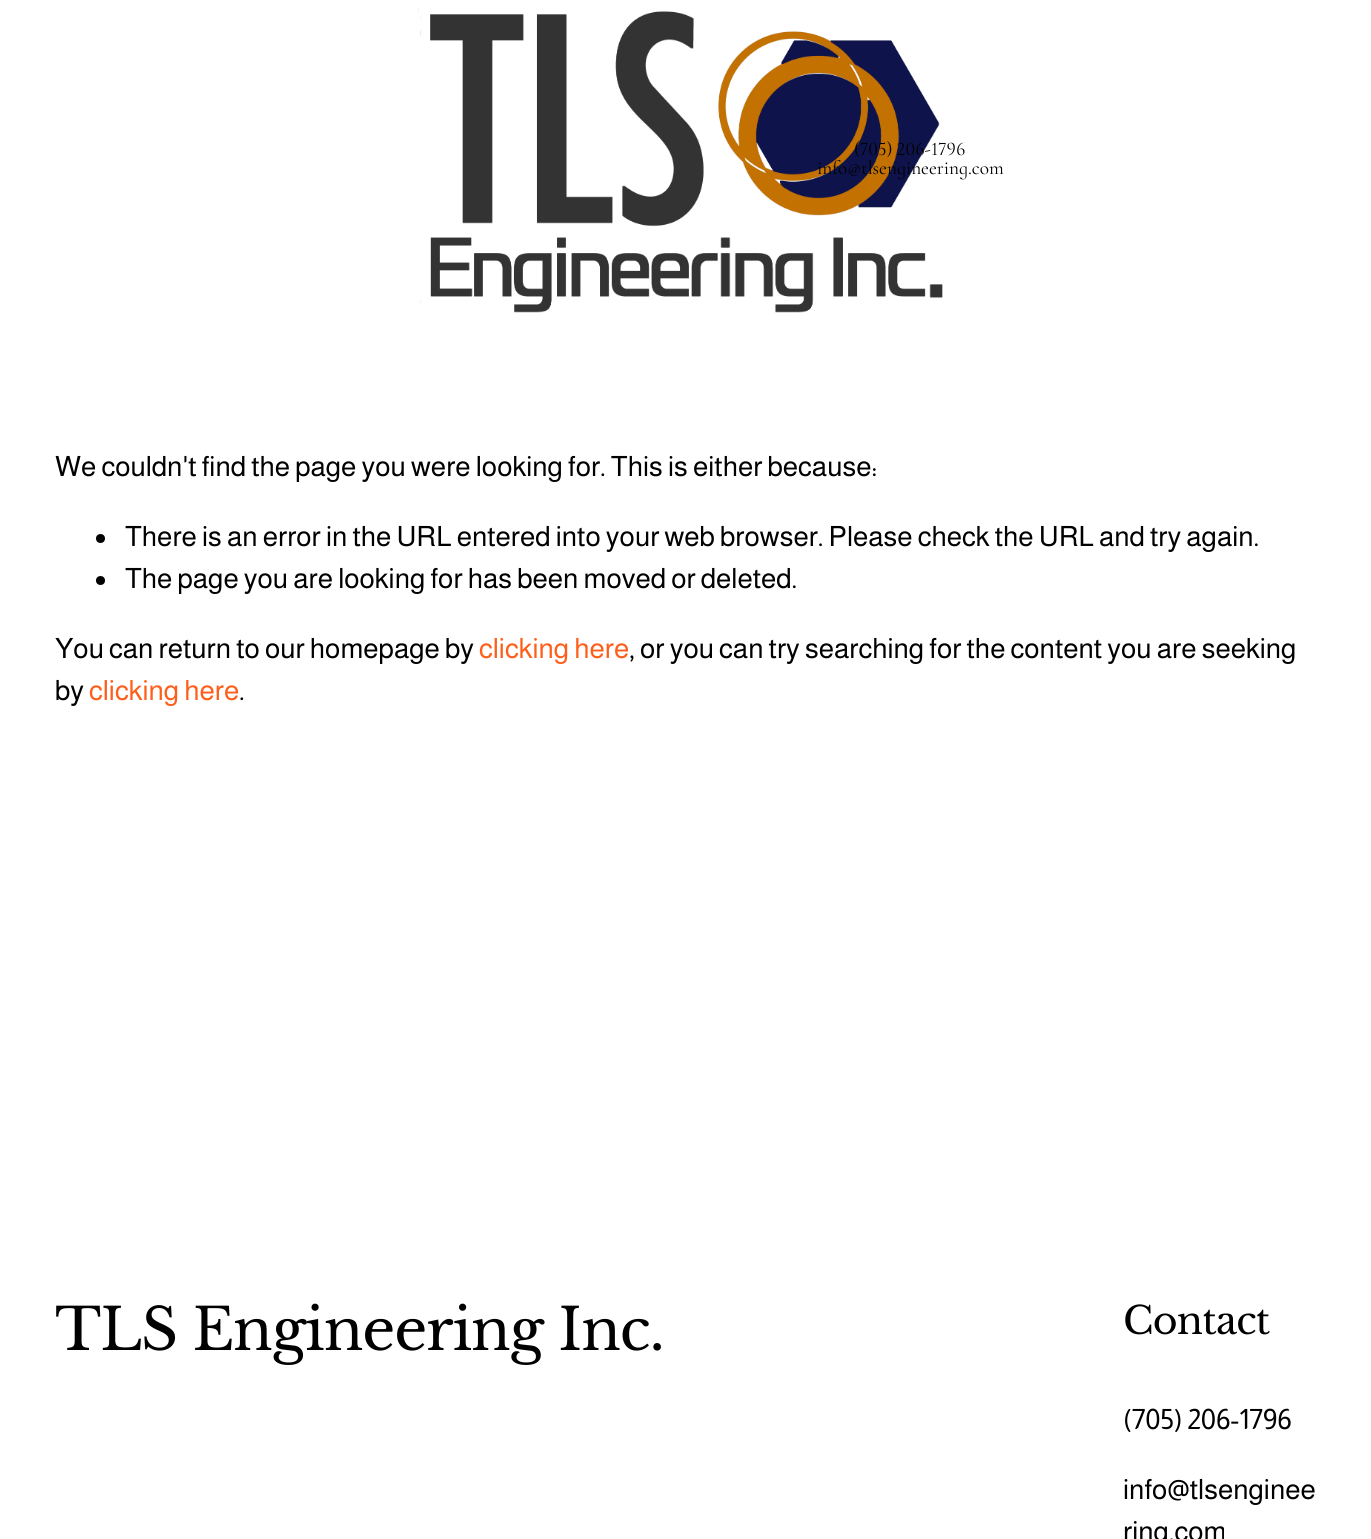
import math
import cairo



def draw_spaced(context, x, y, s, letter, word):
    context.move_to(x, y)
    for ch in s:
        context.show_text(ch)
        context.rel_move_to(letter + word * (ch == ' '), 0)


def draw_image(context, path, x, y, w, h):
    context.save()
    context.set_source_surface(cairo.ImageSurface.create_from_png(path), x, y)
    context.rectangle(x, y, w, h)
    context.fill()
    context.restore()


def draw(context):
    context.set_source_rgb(1, 1, 1)
    context.paint()
    draw_image(context, "images/1.png", 418, 8, 525, 305)
    context.set_source_rgb(0, 0, 0)
    context.arc(100.5, 538.5, 4.5, 0, 2 * math.pi)
    context.fill()
    context.arc(100.5, 580.5, 4.5, 0, 2 * math.pi)
    context.fill()
    context.select_font_face("Cormorant Infant")
    context.set_font_size(19.25)
    context.move_to(854, 155)
    context.show_text("(705) 206-1796")
    context.move_to(817, 174)
    context.show_text("info@tlsengineering.com")
    context.select_font_face("Almarai")
    context.set_font_size(28)
    context.move_to(55, 476)
    context.show_text("We couldn't find the page you were looking for. This is either because:")
    context.move_to(125, 546)
    context.show_text("There is an error in the URL entered into your web browser. Please check the URL and try again.")
    context.move_to(125, 588)
    context.show_text("The page you are looking for has been moved or deleted.")
    context.move_to(55, 658)
    context.show_text("You can return to our homepage by")
    context.set_source_rgb(1, 94 / 255, 26 / 255)
    context.move_to(479, 658)
    context.show_text("clicking here")
    context.set_source_rgb(0, 0, 0)
    context.move_to(629, 658)
    context.show_text(", or you can try searching for the content you are seeking")
    context.move_to(55, 700)
    context.show_text("by")
    context.set_source_rgb(1, 94 / 255, 26 / 255)
    context.move_to(89, 700)
    context.show_text("clicking here")
    context.set_source_rgb(0, 0, 0)
    context.move_to(239, 700)
    context.show_text(".")
    context.select_font_face("Libre Baskerville")
    context.set_font_size(57.6)
    draw_spaced(context, 55, 1350, "TLS Engineering Inc.", -1.1, 0)
    context.set_font_size(38)
    draw_spaced(context, 1123, 1334, "Contact", -0.75, 0)
    context.select_font_face("Almarai")
    context.set_font_size(28)
    context.move_to(1123, 1429)
    context.show_text("(705) 206-1796")
    context.move_to(1123, 1499)
    context.show_text("info@tlsenginee")
    context.move_to(1123, 1541)
    context.show_text("ring.com")


surface = cairo.ImageSurface(cairo.Format.RGB24, 1371, 1539)
context = cairo.Context(surface)
options = cairo.FontOptions()
options.set_hint_metrics(cairo.HintMetrics.OFF)
options.set_hint_style(cairo.HintStyle.NONE)
context.set_font_options(options)
context.set_miter_limit(4)
draw(context)
surface.write_to_png("out.png")
